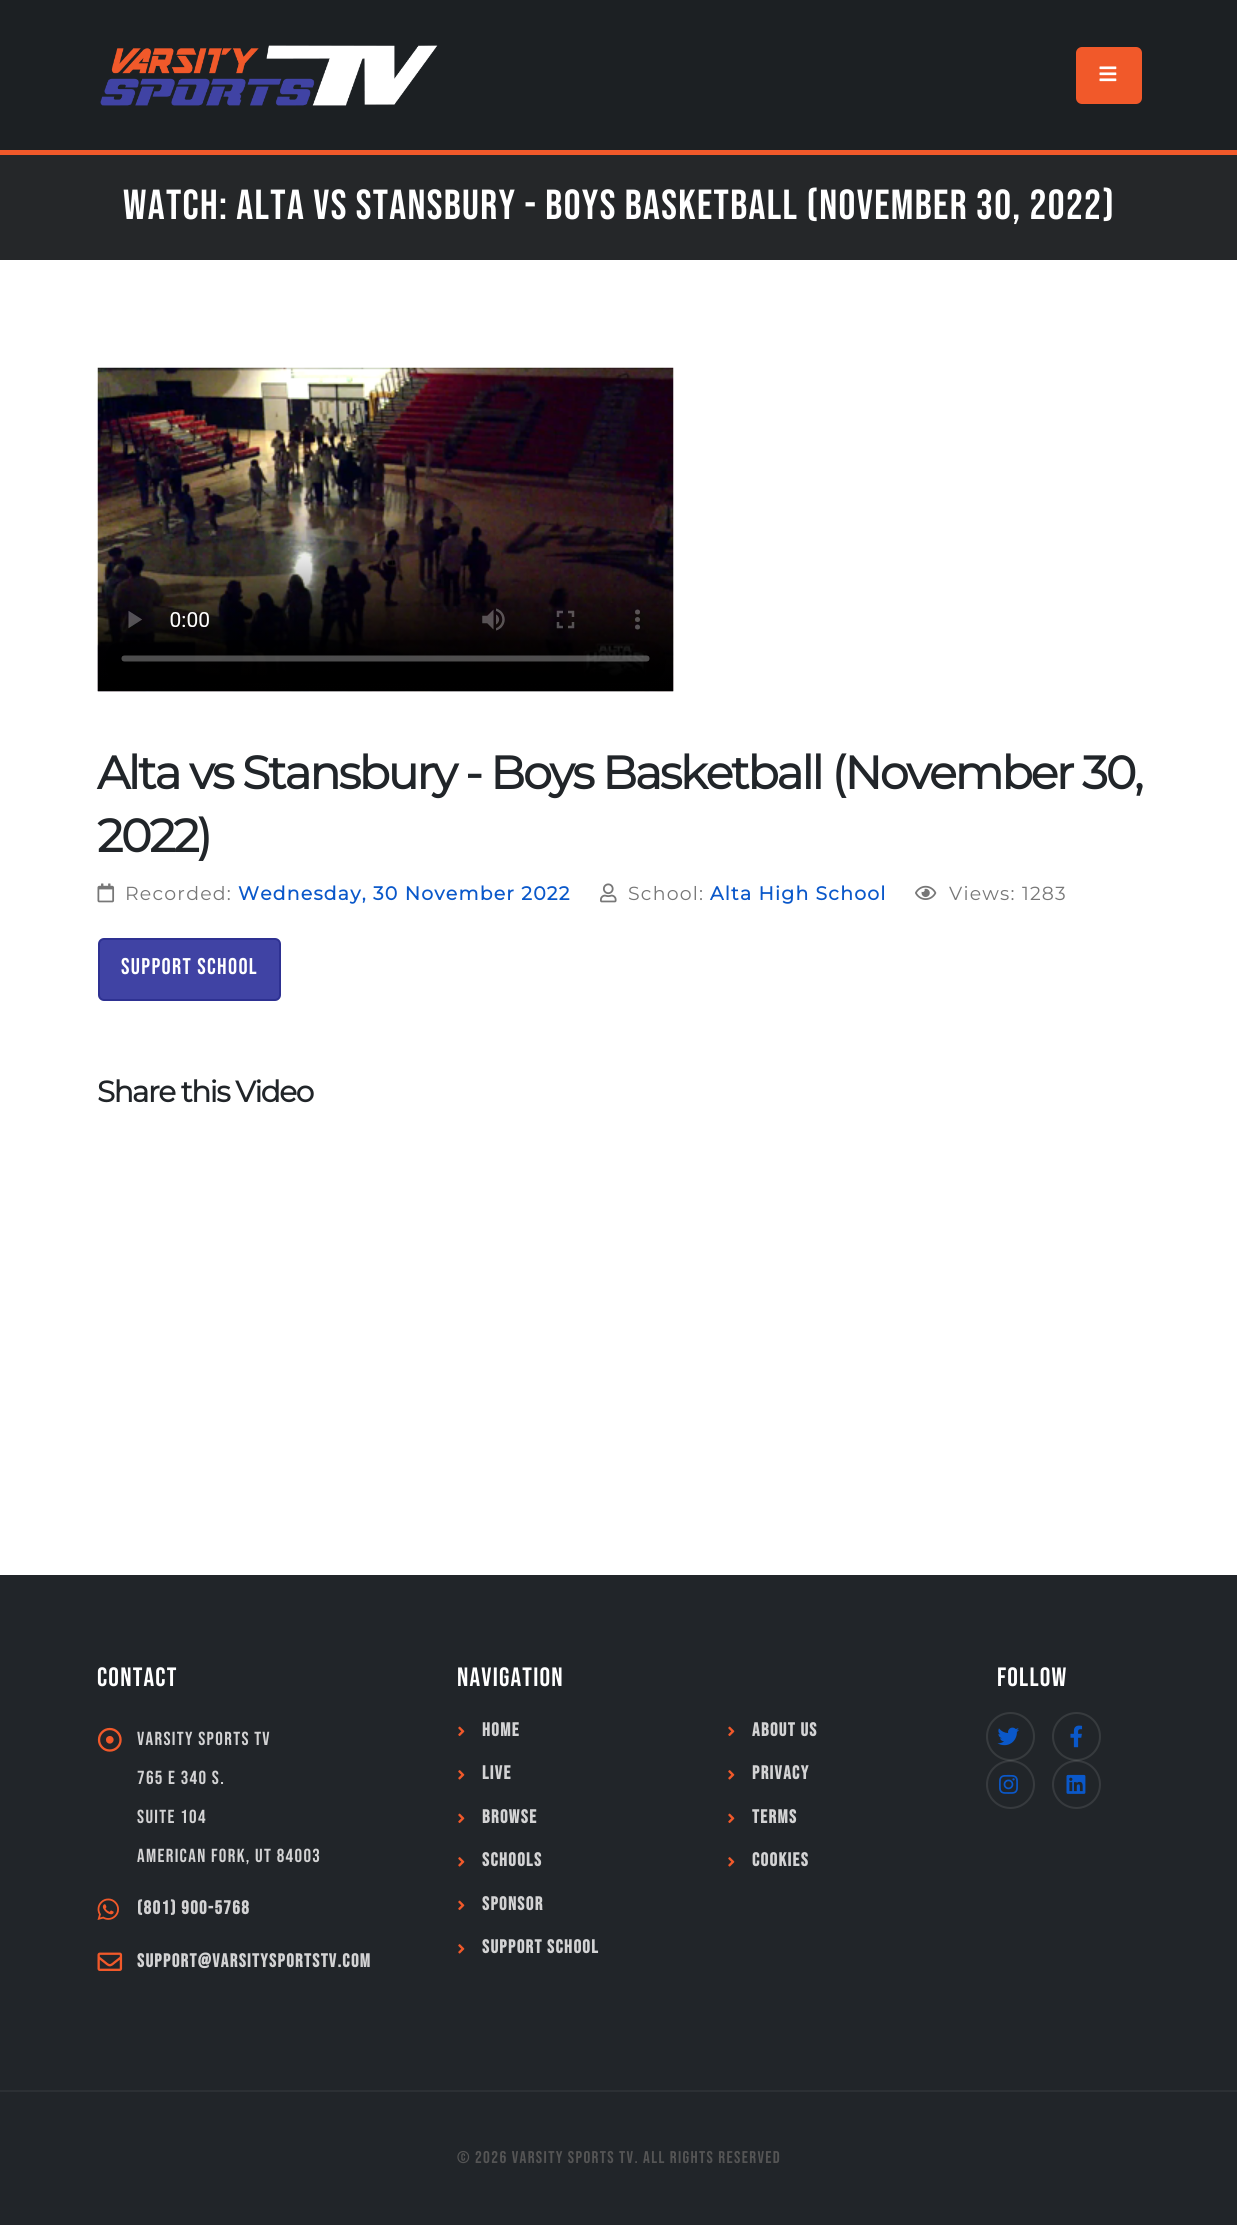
import math
import cairo



def draw_spaced(context, x, y, s, letter, word):
    context.move_to(x, y)
    for ch in s:
        context.show_text(ch)
        context.rel_move_to(letter + word * (ch == ' '), 0)


def rounded_rect(context, x, y, w, h, r):
    context.new_sub_path()
    for i, (u, v) in enumerate([(x + w - r, y + h - r), (x + r, y + h - r), (x + r, y + r), (x + w - r, y + r)]):
        context.arc(u, v, r, i * math.pi / 2, (i + 1) * math.pi / 2)
    context.close_path()


def draw_image(context, path, x, y, w, h):
    context.save()
    context.set_source_surface(cairo.ImageSurface.create_from_png(path), x, y)
    context.rectangle(x, y, w, h)
    context.fill()
    context.restore()


def draw(context):
    context.set_source_rgb(1, 1, 1)
    context.paint()
    context.set_source_rgb(28 / 255, 32 / 255, 35 / 255)
    context.rectangle(0, 0, 1237, 150)
    context.fill()
    draw_image(context, "images/1.png", 100, 45, 338, 61)
    context.set_source_rgb(241 / 255, 89 / 255, 42 / 255)
    rounded_rect(context, 1076, 47, 66, 57, 6)
    context.fill()
    draw_image(context, "images/2.png", 1099, 66, 18, 16)
    context.rectangle(0, 150, 1237, 5)
    context.fill()
    context.set_source_rgb(37 / 255, 39 / 255, 41 / 255)
    context.rectangle(0, 155, 1237, 105)
    context.fill()
    draw_image(context, "images/3.png", 97, 367, 577, 325)
    draw_image(context, "images/4.png", 97, 883, 18, 20)
    draw_image(context, "images/5.png", 600, 883, 17, 20)
    draw_image(context, "images/6.png", 915, 885, 22, 15)
    context.set_source_rgb(64 / 255, 67 / 255, 164 / 255)
    rounded_rect(context, 99, 939, 181, 61, 5)
    context.fill_preserve()
    context.set_source_rgb(46 / 255, 49 / 255, 146 / 255)
    context.stroke()
    context.set_source_rgb(33 / 255, 37 / 255, 41 / 255)
    context.rectangle(0, 1575, 1237, 650)
    context.fill()
    draw_image(context, "images/7.png", 97, 1727, 25, 25)
    draw_image(context, "images/8.png", 97, 1898, 22, 22)
    draw_image(context, "images/9.png", 97, 1952, 26, 19)
    draw_image(context, "images/10.png", 458, 1726, 7, 10)
    draw_image(context, "images/11.png", 458, 1770, 7, 10)
    draw_image(context, "images/10.png", 458, 1813, 7, 10)
    draw_image(context, "images/11.png", 458, 1857, 7, 10)
    draw_image(context, "images/10.png", 458, 1900, 7, 10)
    draw_image(context, "images/11.png", 458, 1944, 7, 10)
    draw_image(context, "images/10.png", 728, 1726, 7, 10)
    draw_image(context, "images/11.png", 728, 1770, 7, 10)
    draw_image(context, "images/10.png", 728, 1813, 7, 10)
    draw_image(context, "images/11.png", 728, 1857, 7, 10)
    context.arc(1010.5, 1736.5, 23.5, 0, 2 * math.pi)
    context.set_source_rgb(55 / 255, 59 / 255, 62 / 255)
    context.stroke()
    draw_image(context, "images/12.png", 997, 1727, 22, 19)
    context.arc(1076.5, 1736.5, 23.5, 0, 2 * math.pi)
    context.stroke()
    draw_image(context, "images/13.png", 1070, 1725, 13, 23)
    context.arc(1010.5, 1784.5, 23.5, 0, 2 * math.pi)
    context.set_source_rgba(1, 1, 1, 0.1)
    context.stroke()
    draw_image(context, "images/14.png", 999, 1774, 19, 20)
    context.arc(1076.5, 1784.5, 23.5, 0, 2 * math.pi)
    context.stroke()
    draw_image(context, "images/15.png", 1066, 1774, 20, 20)
    context.set_source_rgb(44 / 255, 48 / 255, 52 / 255)
    context.rectangle(0, 2090, 1237, 2)
    context.fill()
    context.select_font_face("Bebas Neue")
    context.set_font_size(42)
    context.set_source_rgb(1, 1, 1)
    draw_spaced(context, 123, 219, "Watch: Alta vs Stansbury - Boys Basketball (November 30, 2022)", 1.35, 0)
    context.select_font_face("Montserrat", cairo.FontSlant.NORMAL, cairo.FontWeight.BOLD)
    context.set_font_size(46.2)
    context.set_source_rgb(33 / 255, 37 / 255, 41 / 255)
    draw_spaced(context, 97, 789, "Alta vs Stansbury - Boys Basketball (November 30,", -2.3, 0)
    draw_spaced(context, 97, 852, "2022)", -2.3, 0)
    context.select_font_face("Montserrat")
    context.set_font_size(18.9)
    context.set_source_rgb(119 / 255, 119 / 255, 119 / 255)
    draw_spaced(context, 125, 900, "Recorded:", 1.2, 0)
    context.select_font_face("Montserrat", cairo.FontSlant.NORMAL, cairo.FontWeight.BOLD)
    context.set_source_rgb(10 / 255, 88 / 255, 202 / 255)
    draw_spaced(context, 238, 900, "Wednesday, 30 November 2022", 1.2, 0)
    context.select_font_face("Montserrat")
    context.set_source_rgb(119 / 255, 119 / 255, 119 / 255)
    draw_spaced(context, 628, 900, "School:", 1.2, 0)
    context.select_font_face("Montserrat", cairo.FontSlant.NORMAL, cairo.FontWeight.BOLD)
    context.set_source_rgb(10 / 255, 88 / 255, 202 / 255)
    draw_spaced(context, 710, 900, "Alta High School", 1.2, 0)
    context.select_font_face("Montserrat")
    context.set_source_rgb(119 / 255, 119 / 255, 119 / 255)
    draw_spaced(context, 949, 900, "Views: 1283", 1.2, 0)
    context.select_font_face("Bebas Neue")
    context.set_font_size(22.75)
    context.set_source_rgb(1, 1, 1)
    draw_spaced(context, 121, 974, "Support School", 1.35, 0)
    context.select_font_face("Montserrat", cairo.FontSlant.NORMAL, cairo.FontWeight.BOLD)
    context.set_font_size(29.5)
    context.set_source_rgb(33 / 255, 37 / 255, 41 / 255)
    draw_spaced(context, 97, 1102, "Share this Video", -1.5, 0)
    context.select_font_face("Bebas Neue")
    context.set_font_size(26.5)
    context.set_source_rgb(1, 1, 1)
    draw_spaced(context, 97, 1686, "CONTACT", 1.2, 0)
    context.set_font_size(18.9)
    context.set_source_rgb(211 / 255, 211 / 255, 212 / 255)
    draw_spaced(context, 137, 1745, "Varsity Sports TV", 1.35, 0)
    draw_spaced(context, 137, 1784, "765 E 340 S.", 1.35, 0)
    draw_spaced(context, 137, 1823, "Suite 104", 1.35, 0)
    draw_spaced(context, 137, 1862, "American Fork, UT 84003", 1.35, 0)
    context.select_font_face("Bebas Neue", cairo.FontSlant.NORMAL, cairo.FontWeight.BOLD)
    draw_spaced(context, 137, 1914, "(801) 900-5768", 1.35, 0)
    draw_spaced(context, 137, 1967, "support@varsitysportstv.com", 1.35, 0)
    context.select_font_face("Bebas Neue")
    context.set_font_size(26.5)
    context.set_source_rgb(1, 1, 1)
    draw_spaced(context, 457, 1686, "NAVIGATION", 1.2, 0)
    context.select_font_face("Bebas Neue", cairo.FontSlant.NORMAL, cairo.FontWeight.BOLD)
    context.set_font_size(18.9)
    context.set_source_rgb(211 / 255, 211 / 255, 212 / 255)
    draw_spaced(context, 482, 1736, "Home", 1.35, 0)
    draw_spaced(context, 482, 1779, "Live", 1.35, 0)
    draw_spaced(context, 482, 1823, "Browse", 1.35, 0)
    draw_spaced(context, 482, 1866, "Schools", 1.35, 0)
    draw_spaced(context, 482, 1910, "Sponsor", 1.35, 0)
    draw_spaced(context, 482, 1953, "Support School", 1.35, 0)
    draw_spaced(context, 752, 1736, "About Us", 1.35, 0)
    draw_spaced(context, 752, 1779, "Privacy", 1.35, 0)
    draw_spaced(context, 752, 1823, "Terms", 1.35, 0)
    draw_spaced(context, 752, 1866, "Cookies", 1.35, 0)
    context.select_font_face("Bebas Neue")
    context.set_font_size(26.5)
    context.set_source_rgb(1, 1, 1)
    draw_spaced(context, 997, 1686, "FOLLOW", 1.2, 0)
    context.set_font_size(17)
    context.set_source_rgb(85 / 255, 85 / 255, 85 / 255)
    draw_spaced(context, 457, 2163, "© 2026 Varsity Sports TV. All Rights Reserved", 1.35, 0)


surface = cairo.ImageSurface(cairo.Format.RGB24, 1237, 2225)
context = cairo.Context(surface)
options = cairo.FontOptions()
options.set_hint_metrics(cairo.HintMetrics.OFF)
options.set_hint_style(cairo.HintStyle.NONE)
context.set_font_options(options)
context.set_miter_limit(4)
draw(context)
surface.write_to_png("out.png")
